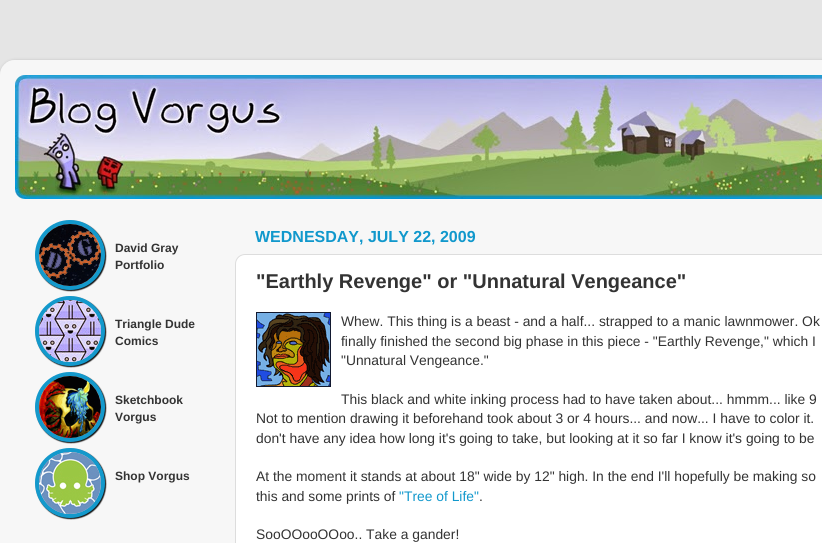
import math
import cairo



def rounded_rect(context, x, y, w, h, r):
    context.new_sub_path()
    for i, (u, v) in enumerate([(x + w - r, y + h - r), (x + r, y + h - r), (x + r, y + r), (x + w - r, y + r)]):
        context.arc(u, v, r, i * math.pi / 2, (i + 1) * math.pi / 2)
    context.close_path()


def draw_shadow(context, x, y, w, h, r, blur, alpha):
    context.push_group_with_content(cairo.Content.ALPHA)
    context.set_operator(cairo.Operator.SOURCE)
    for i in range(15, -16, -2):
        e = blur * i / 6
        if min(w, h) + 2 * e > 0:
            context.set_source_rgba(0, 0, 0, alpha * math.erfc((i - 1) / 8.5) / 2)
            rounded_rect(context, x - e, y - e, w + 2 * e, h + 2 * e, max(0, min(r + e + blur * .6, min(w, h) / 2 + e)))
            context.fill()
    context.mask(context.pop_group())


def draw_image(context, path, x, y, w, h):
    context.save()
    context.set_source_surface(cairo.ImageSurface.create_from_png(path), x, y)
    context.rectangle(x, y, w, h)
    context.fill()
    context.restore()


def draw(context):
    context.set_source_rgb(229 / 255, 229 / 255, 229 / 255)
    context.paint()
    context.save()
    context.set_fill_rule(cairo.FillRule.EVEN_ODD)
    context.new_path()
    context.move_to(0, 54)
    context.line_to(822, 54)
    context.line_to(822, 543)
    context.line_to(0, 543)
    context.close_path()
    context.move_to(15, 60)
    context.line_to(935, 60)
    context.curve_to(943.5, 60, 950, 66.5, 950, 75)
    context.line_to(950, 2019)
    context.curve_to(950, 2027.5, 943.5, 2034, 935, 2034)
    context.line_to(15, 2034)
    context.curve_to(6.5, 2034, 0, 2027.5, 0, 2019)
    context.line_to(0, 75)
    context.curve_to(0, 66.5, 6.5, 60, 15, 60)
    context.close_path()
    context.clip()
    context.set_source_rgb(0, 0, 0)
    draw_shadow(context, 0, 60, 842, 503, 15, 1.5, 0.15)
    context.restore()
    draw_image(context, "images/1.png", 0, 60, 822, 483)
    context.set_source_rgb(17 / 255, 152 / 255, 204 / 255)
    rounded_rect(context, 15, 75, 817, 124, 10)
    context.fill()
    draw_image(context, "images/2.png", 15, 75, 10, 10)
    draw_image(context, "images/3.png", 15, 75, 807, 124)
    context.set_source_rgb(19 / 255, 19 / 255, 19 / 255)
    draw_shadow(context, 36, 221, 70, 70, 35, 0.5, 1)
    context.set_source_rgb(204 / 255, 204 / 255, 204 / 255)
    context.arc(70, 255, 33, 0, 2 * math.pi)
    context.fill_preserve()
    context.set_source_rgb(19 / 255, 153 / 255, 204 / 255)
    context.set_line_width(4)
    context.stroke()
    draw_image(context, "images/4.png", 39, 224, 62, 62)
    context.set_source_rgb(19 / 255, 19 / 255, 19 / 255)
    draw_shadow(context, 36, 297, 70, 70, 35, 0.5, 1)
    context.set_source_rgb(204 / 255, 204 / 255, 204 / 255)
    context.arc(70, 331, 33, 0, 2 * math.pi)
    context.fill_preserve()
    context.set_source_rgb(19 / 255, 153 / 255, 204 / 255)
    context.stroke()
    draw_image(context, "images/5.png", 39, 300, 62, 62)
    context.set_source_rgb(19 / 255, 19 / 255, 19 / 255)
    draw_shadow(context, 36, 373, 70, 70, 35, 0.5, 1)
    context.set_source_rgb(204 / 255, 204 / 255, 204 / 255)
    context.arc(70, 407, 33, 0, 2 * math.pi)
    context.fill_preserve()
    context.set_source_rgb(19 / 255, 153 / 255, 204 / 255)
    context.stroke()
    draw_image(context, "images/6.png", 39, 376, 62, 62)
    context.set_source_rgb(19 / 255, 19 / 255, 19 / 255)
    draw_shadow(context, 36, 449, 70, 70, 35, 0.5, 1)
    context.set_source_rgb(204 / 255, 204 / 255, 204 / 255)
    context.arc(70, 483, 33, 0, 2 * math.pi)
    context.fill_preserve()
    context.set_source_rgb(19 / 255, 153 / 255, 204 / 255)
    context.stroke()
    draw_image(context, "images/7.png", 39, 452, 62, 62)
    context.set_source_rgb(1, 1, 1)
    rounded_rect(context, 235.5, 254.5, 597, 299, 9.5)
    context.fill_preserve()
    context.set_source_rgb(221 / 255, 221 / 255, 221 / 255)
    context.set_line_width(1)
    context.stroke()
    draw_image(context, "images/8.png", 256, 312, 75, 75)
    context.select_font_face("Liberation Sans", cairo.FontSlant.NORMAL, cairo.FontWeight.BOLD)
    context.set_font_size(12)
    context.set_source_rgb(51 / 255, 51 / 255, 51 / 255)
    context.move_to(115, 252)
    context.show_text("David Gray")
    context.move_to(115, 269)
    context.show_text("Portfolio")
    context.move_to(115, 328)
    context.show_text("Triangle Dude")
    context.move_to(115, 345)
    context.show_text("Comics")
    context.move_to(115, 404)
    context.show_text("Sketchbook")
    context.move_to(115, 421)
    context.show_text("Vorgus")
    context.move_to(115, 480)
    context.show_text("Shop Vorgus")
    context.set_font_size(16)
    context.set_source_rgb(17 / 255, 152 / 255, 204 / 255)
    context.move_to(255, 242)
    context.show_text("WEDNESDAY, JULY 22, 2009")
    context.set_font_size(20)
    context.set_source_rgb(51 / 255, 51 / 255, 51 / 255)
    context.move_to(256, 288)
    context.show_text("\"Earthly Revenge\" or \"Unnatural Vengeance\"")
    context.select_font_face("Liberation Sans")
    context.set_font_size(13.85)
    context.move_to(341, 326)
    context.show_text("Whew. This thing is a beast - and a half... strapped to a manic lawnmower. Ok")
    context.move_to(341, 346)
    context.show_text("finally finished the second big phase in this piece - \"Earthly Revenge,\" which I")
    context.move_to(341, 365)
    context.show_text("\"Unnatural Vengeance.\"")
    context.move_to(341, 404)
    context.show_text("This black and white inking process had to have taken about... hmmm... like 9")
    context.move_to(256, 423)
    context.show_text("Not to mention drawing it beforehand took about 3 or 4 hours... and now... I have to color it.")
    context.move_to(256, 443)
    context.show_text("don't have any idea how long it's going to take, but looking at it so far I know it's going to be")
    context.move_to(256, 481)
    context.show_text("At the moment it stands at about 18\" wide by 12\" high. In the end I'll hopefully be making so")
    context.move_to(256, 501)
    context.show_text("this and some prints of")
    context.set_source_rgb(17 / 255, 152 / 255, 204 / 255)
    context.move_to(399, 501)
    context.show_text("\"Tree of Life\"")
    context.set_source_rgb(51 / 255, 51 / 255, 51 / 255)
    context.move_to(479, 501)
    context.show_text(".")
    context.move_to(256, 539)
    context.show_text("SooOOooOOoo.. Take a gander!")


surface = cairo.ImageSurface(cairo.Format.RGB24, 822, 543)
context = cairo.Context(surface)
options = cairo.FontOptions()
options.set_hint_metrics(cairo.HintMetrics.OFF)
options.set_hint_style(cairo.HintStyle.NONE)
context.set_font_options(options)
context.set_miter_limit(4)
draw(context)
surface.write_to_png("out.png")
